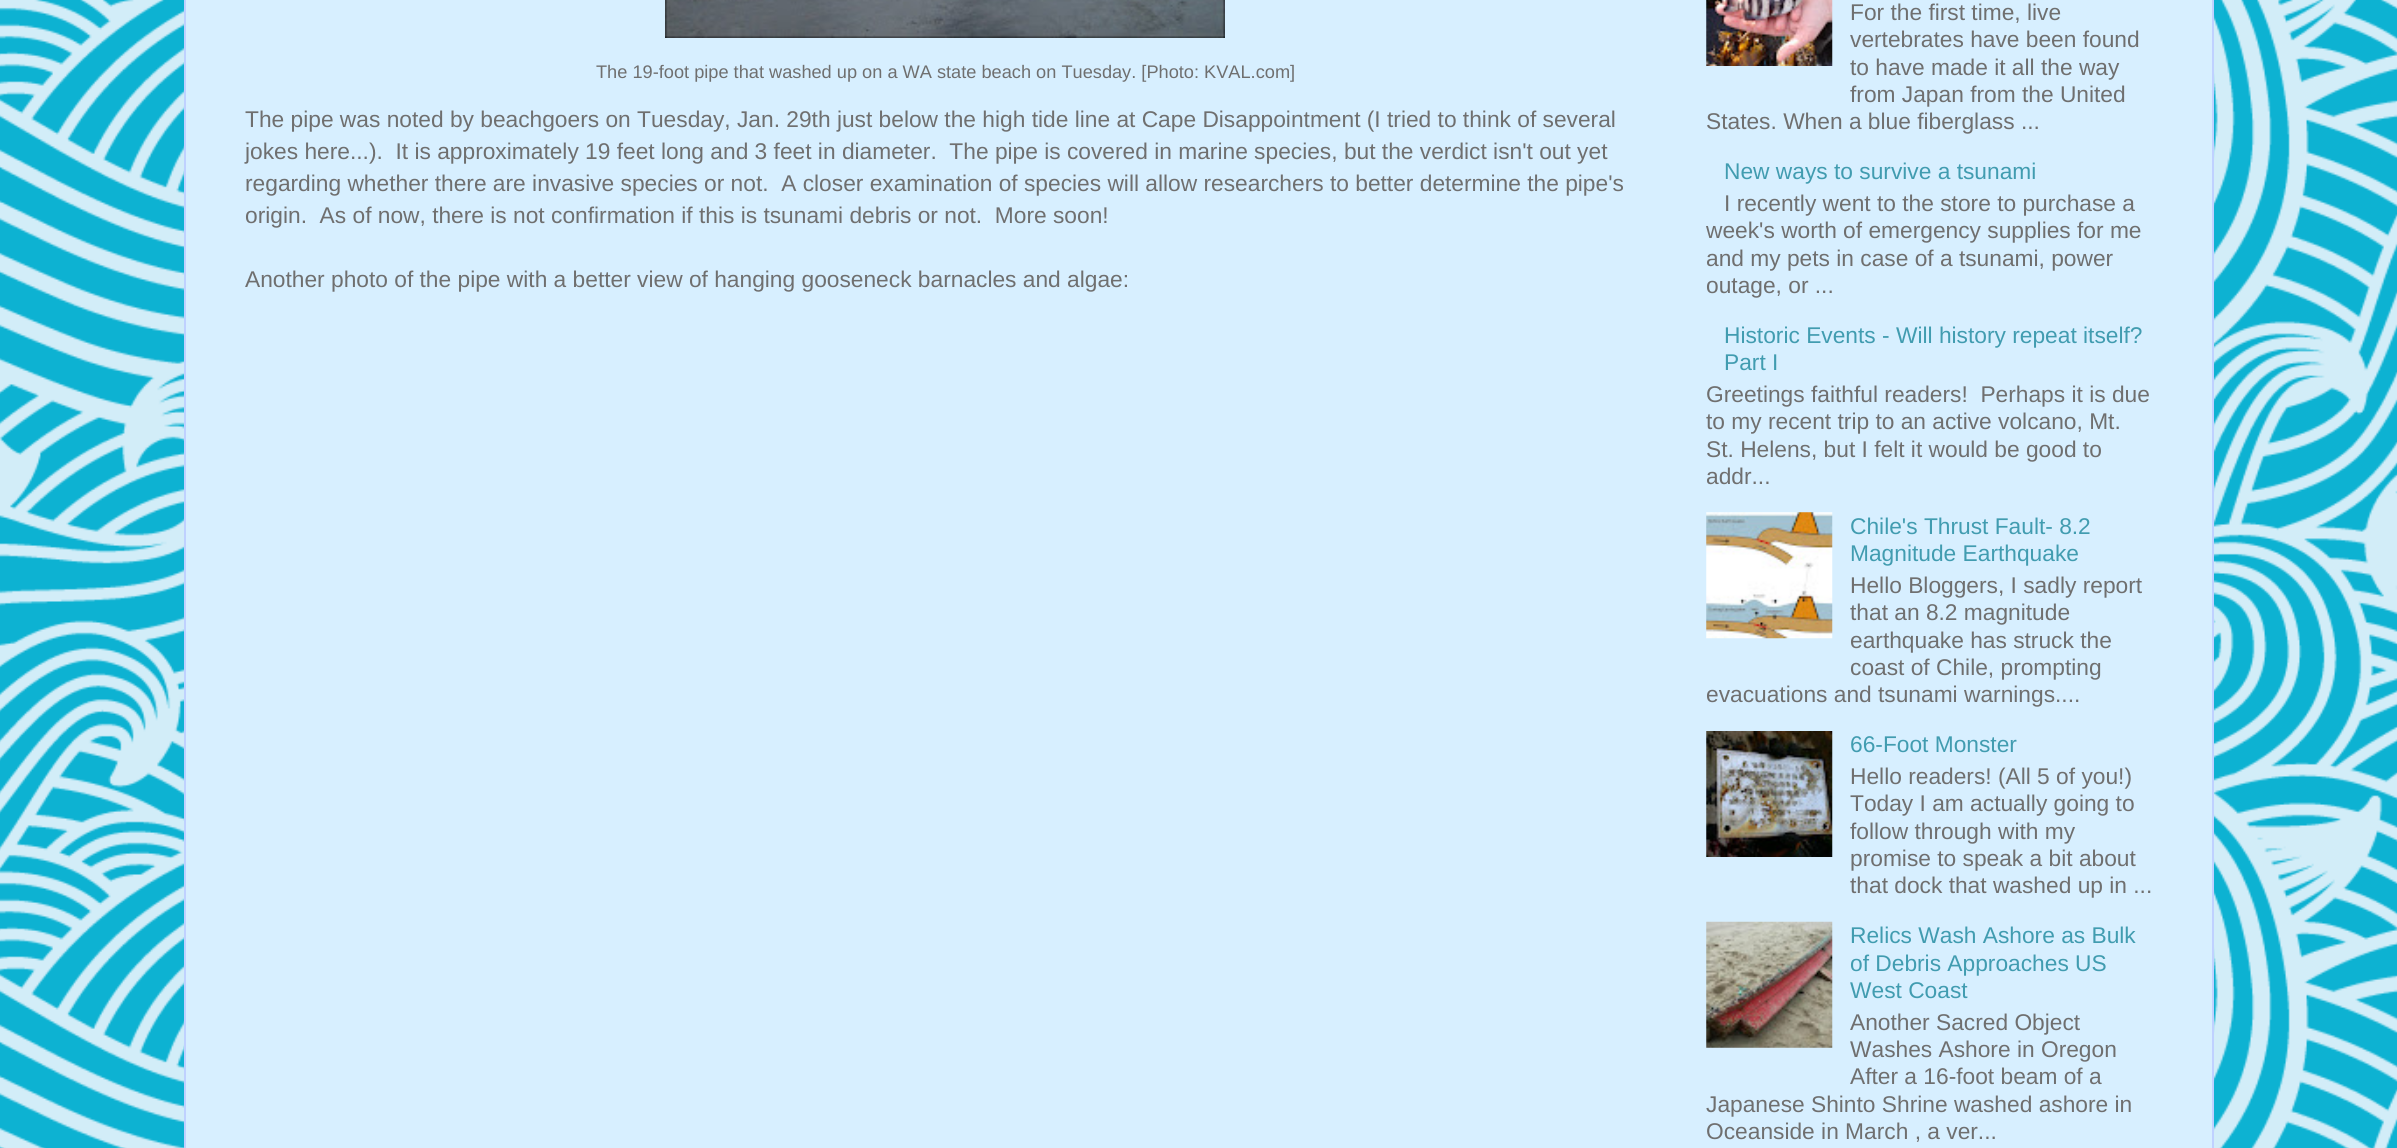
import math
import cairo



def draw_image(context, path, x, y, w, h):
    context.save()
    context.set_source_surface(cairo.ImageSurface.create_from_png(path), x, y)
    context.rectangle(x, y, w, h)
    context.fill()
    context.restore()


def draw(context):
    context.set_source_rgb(1, 1, 1)
    context.paint()
    draw_image(context, "images/1.png", 0, 0, 2397, 1148)
    context.set_source_rgb(215 / 255, 239 / 255, 1)
    context.rectangle(186, 0, 2026, 1148)
    context.fill()
    context.set_source_rgb(191 / 255, 209 / 255, 1)
    context.rectangle(2212, 0, 2, 1148)
    context.fill()
    context.rectangle(184, 0, 2, 1148)
    context.fill()
    draw_image(context, "images/2.png", 665, 0, 560, 38)
    draw_image(context, "images/3.png", 1706, 0, 127, 66)
    draw_image(context, "images/4.png", 1706, 512, 127, 127)
    draw_image(context, "images/5.png", 1706, 731, 127, 126)
    draw_image(context, "images/6.png", 1706, 921, 127, 127)
    context.select_font_face("Liberation Sans")
    context.set_font_size(18.2)
    context.set_source_rgb(111 / 255, 111 / 255, 111 / 255)
    context.move_to(596, 78)
    context.show_text("The 19-foot pipe that washed up on a WA state beach on Tuesday. [Photo: KVAL.com]")
    context.set_font_size(22.75)
    context.move_to(245, 127)
    context.show_text("The pipe was noted by beachgoers on Tuesday, Jan. 29th just below the high tide line at Cape Disappointment (I tried to think of several")
    context.move_to(245, 159)
    context.show_text("jokes here...).  It is approximately 19 feet long and 3 feet in diameter.  The pipe is covered in marine species, but the verdict isn't out yet")
    context.move_to(245, 191)
    context.show_text("regarding whether there are invasive species or not.  A closer examination of species will allow researchers to better determine the pipe's")
    context.move_to(245, 223)
    context.show_text("origin.  As of now, there is not confirmation if this is tsunami debris or not.  More soon!")
    context.move_to(245, 287)
    context.show_text("Another photo of the pipe with a better view of hanging gooseneck barnacles and algae:")
    context.move_to(1850, 20)
    context.show_text("For the first time, live")
    context.move_to(1850, 47)
    context.show_text("vertebrates have been found")
    context.move_to(1850, 75)
    context.show_text("to have made it all the way")
    context.move_to(1850, 102)
    context.show_text("from Japan from the United")
    context.move_to(1706, 129)
    context.show_text("States. When a blue fiberglass ...")
    context.set_source_rgb(65 / 255, 156 / 255, 176 / 255)
    context.move_to(1724, 179)
    context.show_text("New ways to survive a tsunami")
    context.set_source_rgb(111 / 255, 111 / 255, 111 / 255)
    context.move_to(1724, 211)
    context.show_text("I recently went to the store to purchase a")
    context.move_to(1706, 238)
    context.show_text("week's worth of emergency supplies for me")
    context.move_to(1706, 266)
    context.show_text("and my pets in case of a tsunami, power")
    context.move_to(1706, 293)
    context.show_text("outage, or ...")
    context.set_source_rgb(65 / 255, 156 / 255, 176 / 255)
    context.move_to(1724, 343)
    context.show_text("Historic Events - Will history repeat itself?")
    context.move_to(1724, 370)
    context.show_text("Part I")
    context.set_source_rgb(111 / 255, 111 / 255, 111 / 255)
    context.move_to(1706, 402)
    context.show_text("Greetings faithful readers!  Perhaps it is due")
    context.move_to(1706, 429)
    context.show_text("to my recent trip to an active volcano, Mt.")
    context.move_to(1706, 457)
    context.show_text("St. Helens, but I felt it would be good to")
    context.move_to(1706, 484)
    context.show_text("addr...")
    context.set_source_rgb(65 / 255, 156 / 255, 176 / 255)
    context.move_to(1850, 534)
    context.show_text("Chile's Thrust Fault- 8.2")
    context.move_to(1850, 561)
    context.show_text("Magnitude Earthquake")
    context.set_source_rgb(111 / 255, 111 / 255, 111 / 255)
    context.move_to(1850, 593)
    context.show_text("Hello Bloggers, I sadly report")
    context.move_to(1850, 620)
    context.show_text("that an 8.2 magnitude")
    context.move_to(1850, 648)
    context.show_text("earthquake has struck the")
    context.move_to(1850, 675)
    context.show_text("coast of Chile, prompting")
    context.move_to(1706, 702)
    context.show_text("evacuations and tsunami warnings....")
    context.set_source_rgb(65 / 255, 156 / 255, 176 / 255)
    context.move_to(1850, 752)
    context.show_text("66-Foot Monster")
    context.set_source_rgb(111 / 255, 111 / 255, 111 / 255)
    context.move_to(1850, 784)
    context.show_text("Hello readers! (All 5 of you!)")
    context.move_to(1850, 811)
    context.show_text("Today I am actually going to")
    context.move_to(1850, 839)
    context.show_text("follow through with my")
    context.move_to(1850, 866)
    context.show_text("promise to speak a bit about")
    context.move_to(1850, 893)
    context.show_text("that dock that washed up in ...")
    context.set_source_rgb(65 / 255, 156 / 255, 176 / 255)
    context.move_to(1850, 943)
    context.show_text("Relics Wash Ashore as Bulk")
    context.move_to(1850, 971)
    context.show_text("of Debris Approaches US")
    context.move_to(1850, 998)
    context.show_text("West Coast")
    context.set_source_rgb(111 / 255, 111 / 255, 111 / 255)
    context.move_to(1850, 1030)
    context.show_text("Another Sacred Object")
    context.move_to(1850, 1057)
    context.show_text("Washes Ashore in Oregon")
    context.move_to(1850, 1084)
    context.show_text("After a 16-foot beam of a")
    context.move_to(1706, 1112)
    context.show_text("Japanese Shinto Shrine washed ashore in")
    context.move_to(1706, 1139)
    context.show_text("Oceanside in March , a ver...")


surface = cairo.ImageSurface(cairo.Format.RGB24, 2397, 1148)
context = cairo.Context(surface)
options = cairo.FontOptions()
options.set_hint_metrics(cairo.HintMetrics.OFF)
options.set_hint_style(cairo.HintStyle.NONE)
context.set_font_options(options)
context.set_miter_limit(4)
draw(context)
surface.write_to_png("out.png")
